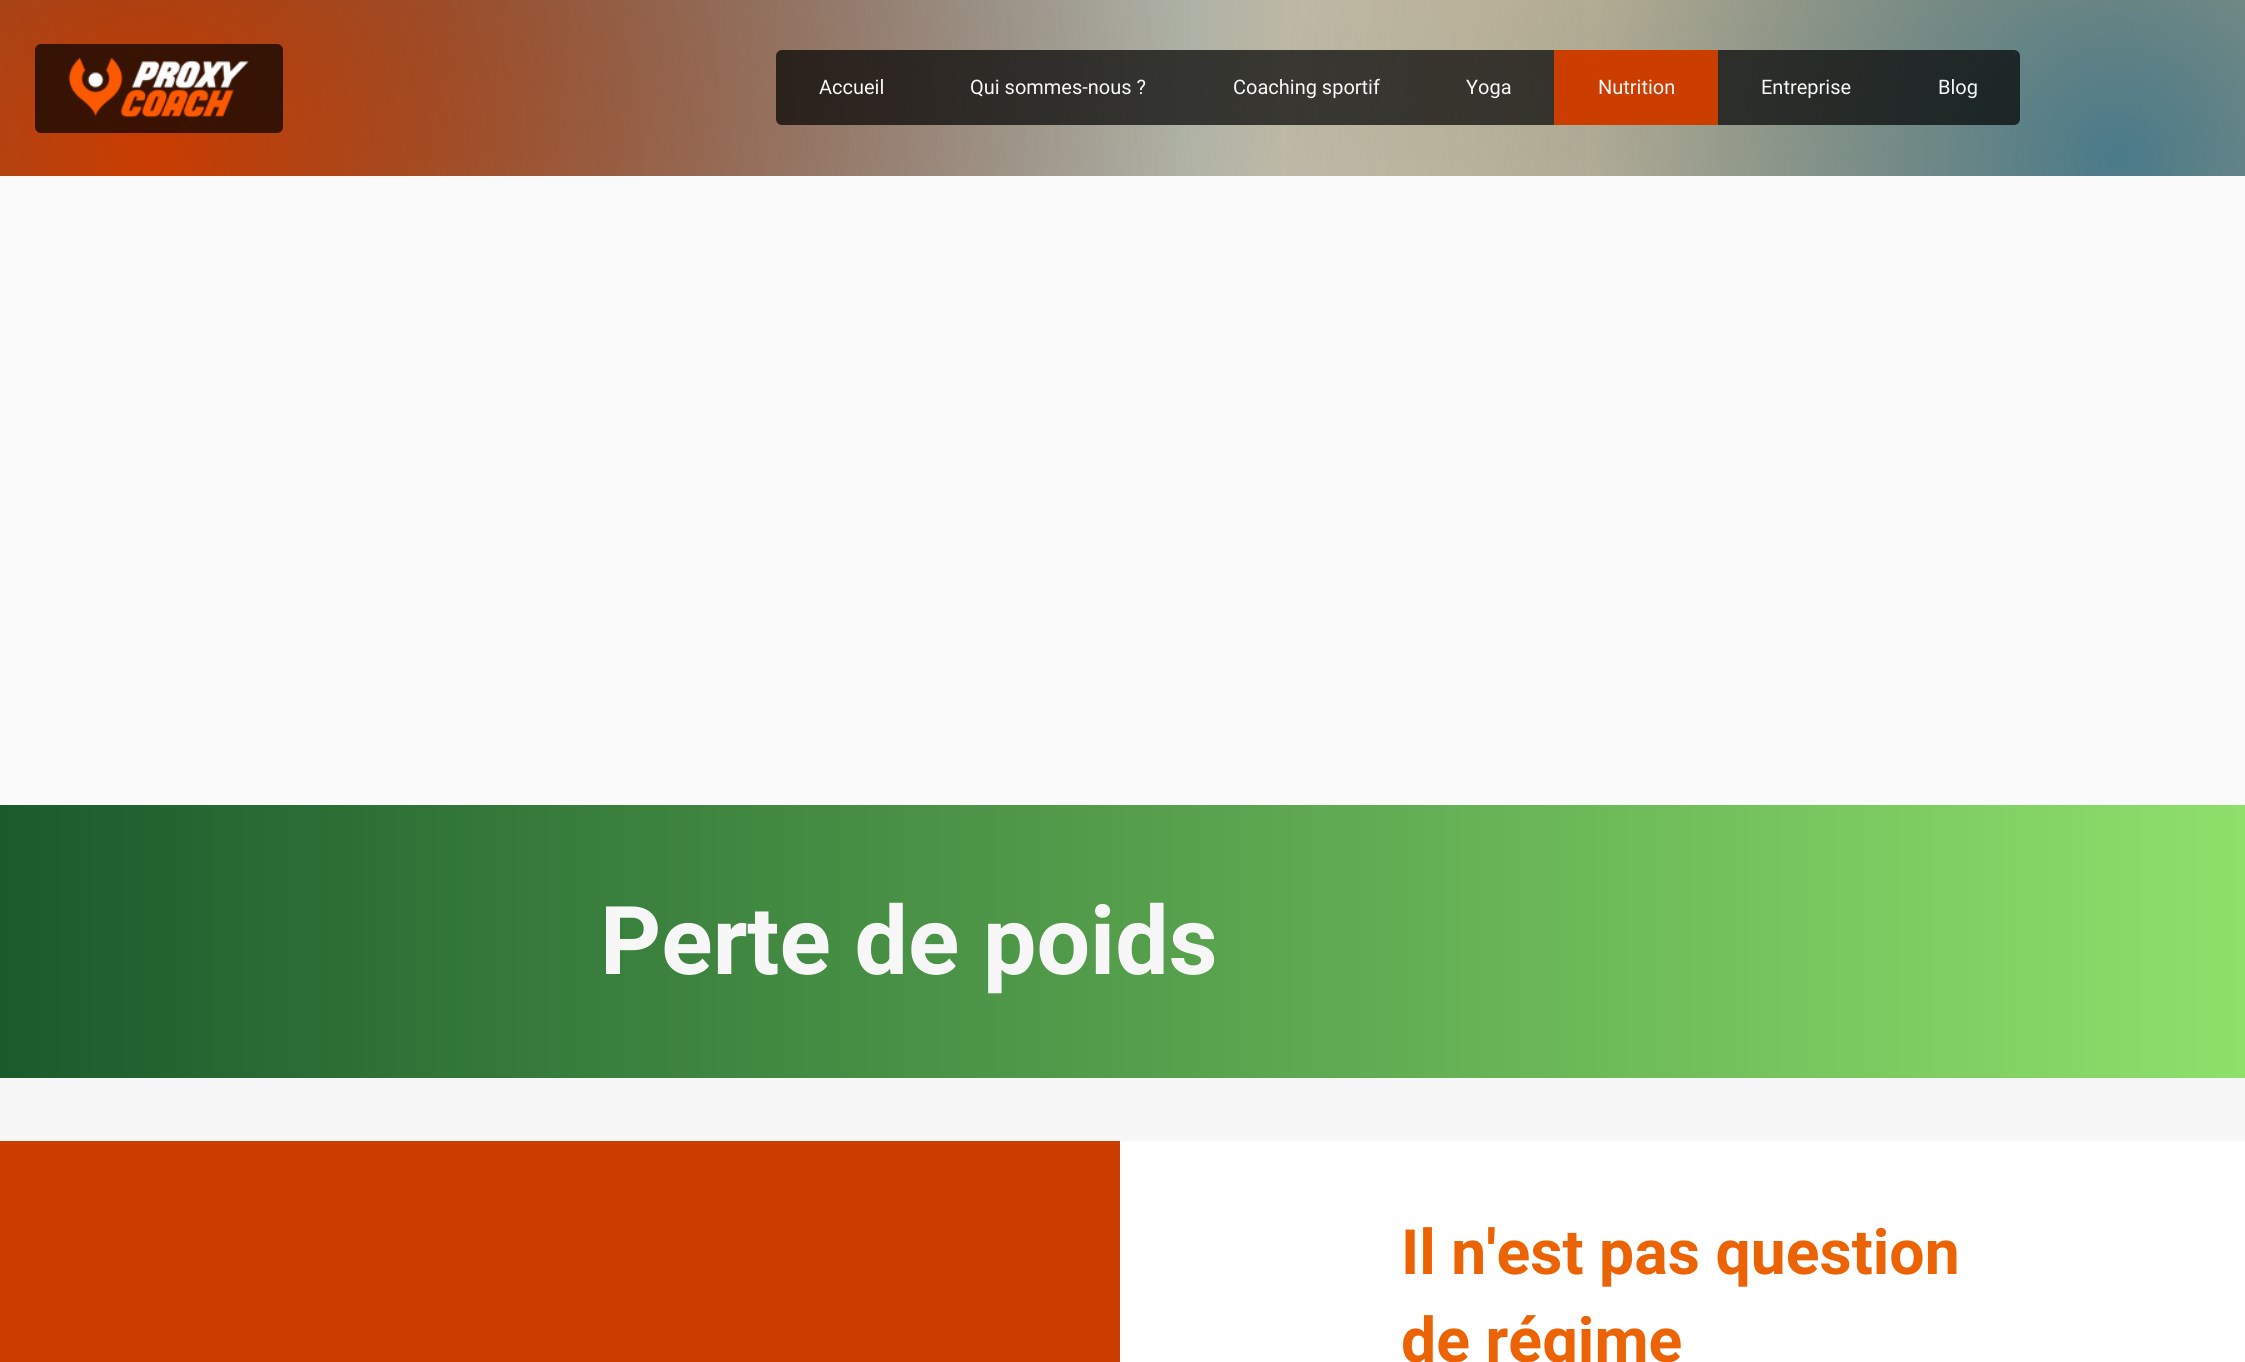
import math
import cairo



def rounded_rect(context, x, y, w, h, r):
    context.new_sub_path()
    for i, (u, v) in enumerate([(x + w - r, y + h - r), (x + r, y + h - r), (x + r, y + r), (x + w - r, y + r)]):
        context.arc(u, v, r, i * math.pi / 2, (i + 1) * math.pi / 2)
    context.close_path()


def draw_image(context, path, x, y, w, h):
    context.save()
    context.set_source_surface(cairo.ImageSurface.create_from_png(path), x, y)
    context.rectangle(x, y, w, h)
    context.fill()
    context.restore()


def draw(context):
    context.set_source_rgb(247 / 255, 247 / 255, 247 / 255)
    context.paint()
    context.set_source_rgb(250 / 255, 250 / 255, 250 / 255)
    context.rectangle(0, 160, 2245, 645)
    context.fill()
    gradient = cairo.RadialGradient(1098, 87, 0, 1098, 87, 1151)
    gradient.add_color_stop_rgba(0, 247 / 255, 247 / 255, 247 / 255, 1)
    gradient.add_color_stop_rgba(1, 247 / 255, 247 / 255, 247 / 255, 0)
    context.set_source(gradient)
    context.rectangle(678, 160, 840, 16)
    context.fill()
    gradient = cairo.RadialGradient(2103, 20, 0, 2103, 20, 2109)
    gradient.add_color_stop_rgba(0, 232 / 255, 174 / 255, 104 / 255, 1)
    gradient.add_color_stop_rgba(0.7, 232 / 255, 174 / 255, 104 / 255, 0)
    context.set_source(gradient)
    context.rectangle(657, 0, 1588, 176)
    context.fill()
    gradient = cairo.RadialGradient(138, 22, 0, 138, 22, 2112)
    gradient.add_color_stop_rgba(0, 8 / 255, 76 / 255, 97 / 255, 1)
    gradient.add_color_stop_rgba(0.7, 8 / 255, 76 / 255, 97 / 255, 0)
    context.set_source(gradient)
    context.rectangle(0, 0, 1585, 176)
    context.fill()
    gradient = cairo.RadialGradient(146, 155, 0, 146, 155, 2105)
    gradient.add_color_stop_rgba(0, 204 / 255, 61 / 255, 0, 0.99)
    gradient.add_color_stop_rgba(0.5, 204 / 255, 61 / 255, 0, 0)
    context.set_source(gradient)
    context.rectangle(0, 0, 1176, 176)
    context.fill()
    gradient = cairo.RadialGradient(2118, 158, 0, 2118, 158, 2124)
    gradient.add_color_stop_rgba(0, 74 / 255, 122 / 255, 137 / 255, 1)
    gradient.add_color_stop_rgba(0.4, 74 / 255, 122 / 255, 137 / 255, 0)
    context.set_source(gradient)
    context.rectangle(1286, 0, 959, 176)
    context.fill()
    context.set_source_rgba(0, 0, 0, 0.7)
    rounded_rect(context, 35, 44, 248, 89, 6)
    context.fill()
    draw_image(context, "images/1.png", 68, 57, 181, 61)
    rounded_rect(context, 776, 50, 1244, 75, 6)
    context.fill()
    context.set_source_rgb(204 / 255, 61 / 255, 0)
    context.rectangle(1554, 50, 164, 75)
    context.fill()
    gradient = cairo.LinearGradient(0, 941, 2245, 941)
    gradient.add_color_stop_rgba(0, 26 / 255, 91 / 255, 44 / 255, 1)
    gradient.add_color_stop_rgba(1, 142 / 255, 224 / 255, 107 / 255, 1)
    context.set_source(gradient)
    context.rectangle(0, 805, 2245, 273)
    context.fill()
    context.set_source_rgb(204 / 255, 61 / 255, 0)
    context.rectangle(0, 1141, 1120, 221)
    context.fill()
    context.set_source_rgb(1, 1, 1)
    context.rectangle(1120, 1141, 1125, 221)
    context.fill()
    context.select_font_face("Roboto")
    context.set_font_size(20)
    context.set_source_rgb(247 / 255, 247 / 255, 247 / 255)
    context.move_to(819, 94)
    context.show_text("Accueil")
    context.move_to(970, 94)
    context.show_text("Qui sommes-nous ?")
    context.move_to(1233, 94)
    context.show_text("Coaching sportif")
    context.move_to(1466, 94)
    context.show_text("Yoga")
    context.move_to(1598, 94)
    context.show_text("Nutrition")
    context.move_to(1761, 94)
    context.show_text("Entreprise")
    context.move_to(1938, 94)
    context.show_text("Blog")
    context.select_font_face("Roboto", cairo.FontSlant.NORMAL, cairo.FontWeight.BOLD)
    context.set_font_size(95)
    context.move_to(600, 974)
    context.show_text("Perte de poids")
    context.set_font_size(62.5)
    context.set_source_rgb(236 / 255, 99 / 255, 6 / 255)
    context.move_to(1401, 1274)
    context.show_text("Il n'est pas question")
    context.move_to(1401, 1362)
    context.show_text("de régime")


surface = cairo.ImageSurface(cairo.Format.RGB24, 2245, 1362)
context = cairo.Context(surface)
options = cairo.FontOptions()
options.set_hint_metrics(cairo.HintMetrics.OFF)
options.set_hint_style(cairo.HintStyle.NONE)
context.set_font_options(options)
context.set_miter_limit(4)
draw(context)
surface.write_to_png("out.png")
